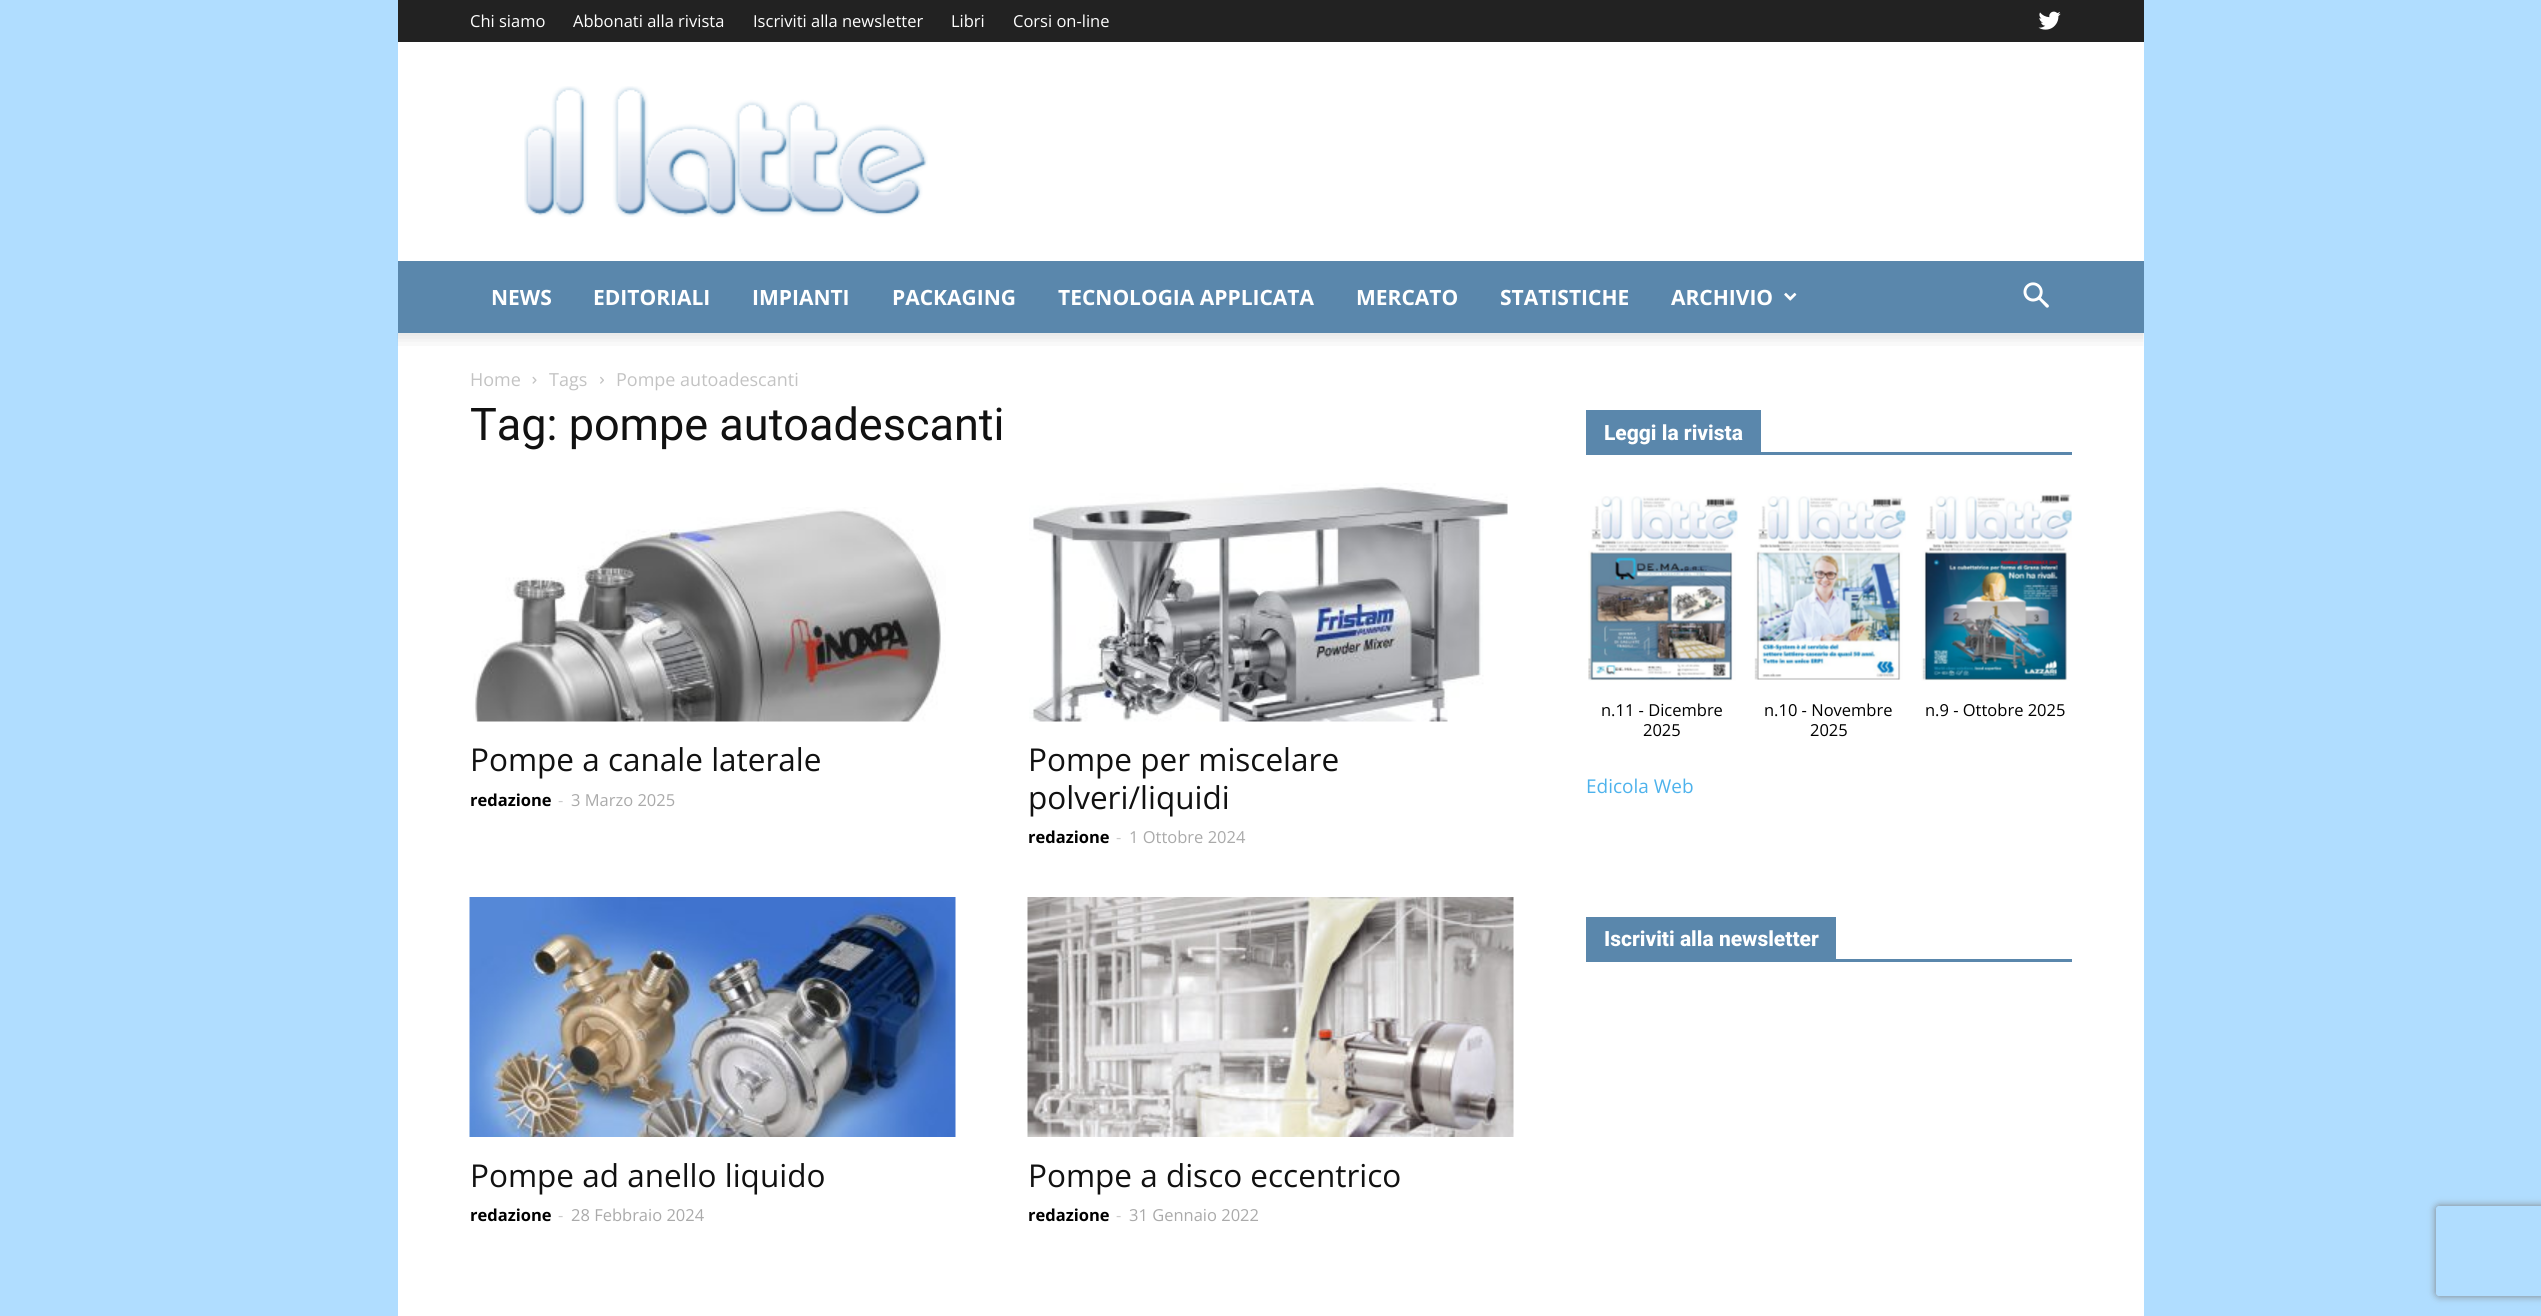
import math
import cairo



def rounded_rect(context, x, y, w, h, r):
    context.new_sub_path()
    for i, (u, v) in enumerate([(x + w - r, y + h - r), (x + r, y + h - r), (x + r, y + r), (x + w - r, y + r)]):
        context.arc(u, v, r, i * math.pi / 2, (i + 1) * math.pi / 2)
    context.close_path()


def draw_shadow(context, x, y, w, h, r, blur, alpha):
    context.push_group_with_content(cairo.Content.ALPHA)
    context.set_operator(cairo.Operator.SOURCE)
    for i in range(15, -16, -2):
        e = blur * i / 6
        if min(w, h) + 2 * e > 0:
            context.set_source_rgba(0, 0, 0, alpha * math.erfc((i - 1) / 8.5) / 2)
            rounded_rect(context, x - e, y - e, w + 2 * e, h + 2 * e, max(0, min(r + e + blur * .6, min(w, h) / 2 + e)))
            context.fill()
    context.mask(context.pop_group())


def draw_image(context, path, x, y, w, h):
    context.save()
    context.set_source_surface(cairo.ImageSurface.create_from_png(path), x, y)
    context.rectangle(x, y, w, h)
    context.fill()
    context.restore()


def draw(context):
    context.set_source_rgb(176 / 255, 221 / 255, 1)
    context.paint()
    context.set_source_rgb(34 / 255, 34 / 255, 34 / 255)
    context.rectangle(398, 0, 1746, 42)
    context.fill()
    draw_image(context, "images/1.png", 2038, 11, 23, 19)
    context.set_source_rgb(1, 1, 1)
    context.rectangle(398, 42, 1746, 219)
    context.fill()
    draw_image(context, "images/2.png", 524, 86, 404, 131)
    context.set_source_rgb(90 / 255, 135 / 255, 172 / 255)
    context.rectangle(398, 261, 1746, 72)
    context.fill()
    draw_image(context, "images/3.png", 1784, 292, 13, 9)
    draw_image(context, "images/4.png", 2023, 282, 26, 26)
    context.set_source_rgb(1, 1, 1)
    context.rectangle(398, 333, 1746, 983)
    context.fill()
    draw_image(context, "images/5.png", 397, 333, 1747, 13)
    draw_image(context, "images/6.png", 532, 376, 5, 8)
    draw_image(context, "images/7.png", 600, 376, 4, 8)
    draw_image(context, "images/8.png", 473, 507, 473, 215)
    draw_image(context, "images/9.png", 1029, 483, 479, 239)
    draw_image(context, "images/10.png", 469, 897, 487, 240)
    draw_image(context, "images/11.png", 1027, 897, 487, 240)
    context.set_source_rgb(90 / 255, 135 / 255, 172 / 255)
    context.rectangle(1586, 452, 486, 3)
    context.fill()
    context.rectangle(1586, 410, 175, 42)
    context.fill()
    draw_image(context, "images/12.png", 1588, 496, 150, 185)
    draw_image(context, "images/13.png", 1754, 496, 152, 184)
    draw_image(context, "images/14.png", 1921, 494, 151, 187)
    context.rectangle(1586, 959, 486, 3)
    context.fill()
    context.rectangle(1586, 917, 250, 42)
    context.fill()
    context.save()
    context.set_fill_rule(cairo.FillRule.EVEN_ODD)
    context.new_path()
    context.move_to(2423, 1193)
    context.line_to(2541, 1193)
    context.line_to(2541, 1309)
    context.line_to(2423, 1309)
    context.close_path()
    context.move_to(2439, 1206)
    context.line_to(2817, 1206)
    context.curve_to(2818.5, 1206, 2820, 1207.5, 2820, 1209)
    context.line_to(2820, 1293)
    context.curve_to(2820, 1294.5, 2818.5, 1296, 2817, 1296)
    context.line_to(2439, 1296)
    context.curve_to(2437.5, 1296, 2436, 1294.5, 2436, 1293)
    context.line_to(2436, 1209)
    context.curve_to(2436, 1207.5, 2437.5, 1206, 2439, 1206)
    context.close_path()
    context.clip()
    context.set_source_rgb(128 / 255, 128 / 255, 128 / 255)
    draw_shadow(context, 2436, 1206, 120, 90, 3, 4, 1)
    context.restore()
    context.select_font_face("Open Sans")
    context.set_font_size(16.5)
    context.set_source_rgb(1, 1, 1)
    context.move_to(470, 27)
    context.show_text("Chi siamo")
    context.move_to(573, 27)
    context.show_text("Abbonati alla rivista")
    context.move_to(753, 27)
    context.show_text("Iscriviti alla newsletter")
    context.move_to(951, 27)
    context.show_text("Libri")
    context.move_to(1013, 27)
    context.show_text("Corsi on-line")
    context.select_font_face("Open Sans", cairo.FontSlant.NORMAL, cairo.FontWeight.BOLD)
    context.set_font_size(21)
    context.move_to(491, 305)
    context.show_text("NEWS")
    context.move_to(593, 305)
    context.show_text("EDITORIALI")
    context.move_to(752, 305)
    context.show_text("IMPIANTI")
    context.move_to(892, 305)
    context.show_text("PACKAGING")
    context.move_to(1058, 305)
    context.show_text("TECNOLOGIA APPLICATA")
    context.move_to(1356, 305)
    context.show_text("MERCATO")
    context.move_to(1500, 305)
    context.show_text("STATISTICHE")
    context.move_to(1671, 305)
    context.show_text("ARCHIVIO")
    context.select_font_face("Open Sans")
    context.set_font_size(18)
    context.set_source_rgb(195 / 255, 195 / 255, 195 / 255)
    context.move_to(470, 386)
    context.show_text("Home")
    context.move_to(549, 386)
    context.show_text("Tags")
    context.move_to(616, 386)
    context.show_text("Pompe autoadescanti")
    context.select_font_face("Roboto")
    context.set_font_size(45)
    context.set_source_rgb(17 / 255, 17 / 255, 17 / 255)
    context.move_to(470, 440)
    context.show_text("Tag: pompe autoadescanti")
    context.select_font_face("Open Sans")
    context.set_font_size(31.5)
    context.move_to(470, 771)
    context.show_text("Pompe a canale laterale")
    context.select_font_face("Open Sans", cairo.FontSlant.NORMAL, cairo.FontWeight.BOLD)
    context.set_font_size(16.5)
    context.set_source_rgb(0, 0, 0)
    context.move_to(470, 806)
    context.show_text("redazione")
    context.select_font_face("Open Sans")
    context.set_source_rgb(204 / 255, 204 / 255, 204 / 255)
    context.move_to(558, 806)
    context.show_text("-")
    context.set_source_rgb(170 / 255, 170 / 255, 170 / 255)
    context.move_to(571, 806)
    context.show_text("3 Marzo 2025")
    context.set_font_size(31.5)
    context.set_source_rgb(17 / 255, 17 / 255, 17 / 255)
    context.move_to(1028, 771)
    context.show_text("Pompe per miscelare")
    context.move_to(1028, 809)
    context.show_text("polveri/liquidi")
    context.select_font_face("Open Sans", cairo.FontSlant.NORMAL, cairo.FontWeight.BOLD)
    context.set_font_size(16.5)
    context.set_source_rgb(0, 0, 0)
    context.move_to(1028, 843)
    context.show_text("redazione")
    context.select_font_face("Open Sans")
    context.set_source_rgb(204 / 255, 204 / 255, 204 / 255)
    context.move_to(1116, 843)
    context.show_text("-")
    context.set_source_rgb(170 / 255, 170 / 255, 170 / 255)
    context.move_to(1129, 843)
    context.show_text("1 Ottobre 2024")
    context.set_font_size(31.5)
    context.set_source_rgb(17 / 255, 17 / 255, 17 / 255)
    context.move_to(470, 1187)
    context.show_text("Pompe ad anello liquido")
    context.select_font_face("Open Sans", cairo.FontSlant.NORMAL, cairo.FontWeight.BOLD)
    context.set_font_size(16.5)
    context.set_source_rgb(0, 0, 0)
    context.move_to(470, 1221)
    context.show_text("redazione")
    context.select_font_face("Open Sans")
    context.set_source_rgb(204 / 255, 204 / 255, 204 / 255)
    context.move_to(558, 1221)
    context.show_text("-")
    context.set_source_rgb(170 / 255, 170 / 255, 170 / 255)
    context.move_to(571, 1221)
    context.show_text("28 Febbraio 2024")
    context.set_font_size(31.5)
    context.set_source_rgb(17 / 255, 17 / 255, 17 / 255)
    context.move_to(1028, 1187)
    context.show_text("Pompe a disco eccentrico")
    context.select_font_face("Open Sans", cairo.FontSlant.NORMAL, cairo.FontWeight.BOLD)
    context.set_font_size(16.5)
    context.set_source_rgb(0, 0, 0)
    context.move_to(1028, 1221)
    context.show_text("redazione")
    context.select_font_face("Open Sans")
    context.set_source_rgb(204 / 255, 204 / 255, 204 / 255)
    context.move_to(1116, 1221)
    context.show_text("-")
    context.set_source_rgb(170 / 255, 170 / 255, 170 / 255)
    context.move_to(1129, 1221)
    context.show_text("31 Gennaio 2022")
    context.select_font_face("Roboto ExtraBold")
    context.set_font_size(21)
    context.set_source_rgb(1, 1, 1)
    context.move_to(1604, 440)
    context.show_text("Leggi la rivista")
    context.select_font_face("Open Sans")
    context.set_font_size(16.5)
    context.set_source_rgb(0, 0, 0)
    context.move_to(1601, 716)
    context.show_text("n.11 - Dicembre")
    context.move_to(1643, 736)
    context.show_text("2025")
    context.move_to(1764, 716)
    context.show_text("n.10 - Novembre")
    context.move_to(1810, 736)
    context.show_text("2025")
    context.move_to(1925, 716)
    context.show_text("n.9 - Ottobre 2025")
    context.set_font_size(19)
    context.set_source_rgb(77 / 255, 178 / 255, 236 / 255)
    context.move_to(1586, 793)
    context.show_text("Edicola Web")
    context.select_font_face("Roboto ExtraBold")
    context.set_font_size(21)
    context.set_source_rgb(1, 1, 1)
    context.move_to(1604, 946)
    context.show_text("Iscriviti alla newsletter")


surface = cairo.ImageSurface(cairo.Format.RGB24, 2541, 1316)
context = cairo.Context(surface)
options = cairo.FontOptions()
options.set_hint_metrics(cairo.HintMetrics.OFF)
options.set_hint_style(cairo.HintStyle.NONE)
context.set_font_options(options)
context.set_miter_limit(4)
draw(context)
surface.write_to_png("out.png")
